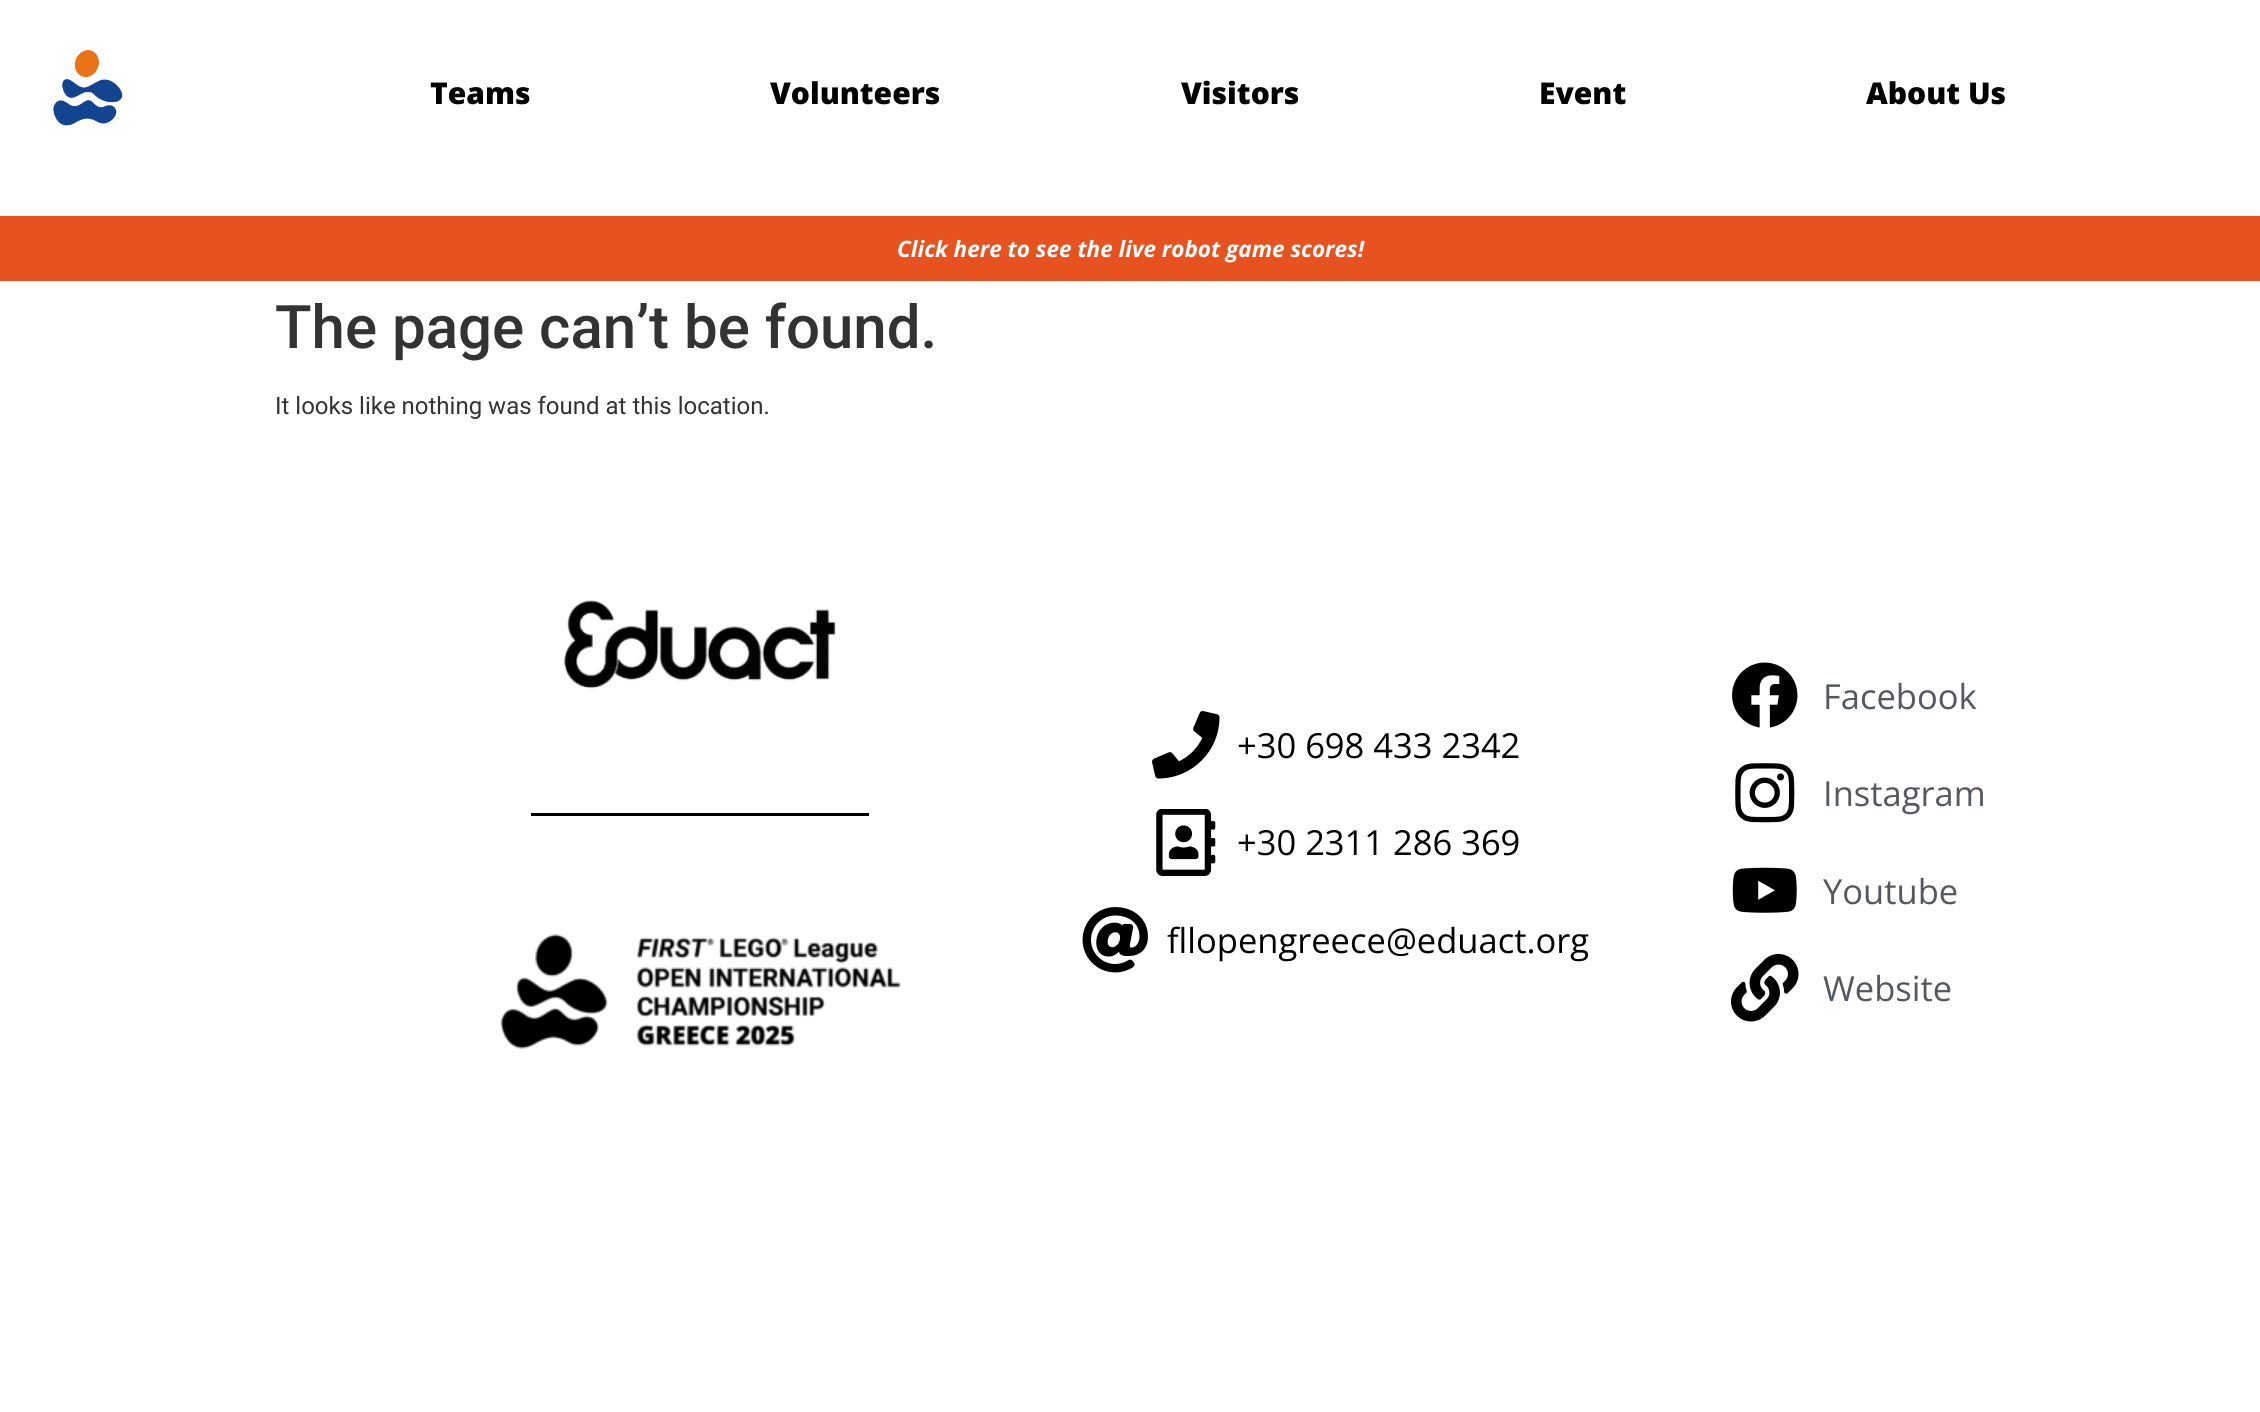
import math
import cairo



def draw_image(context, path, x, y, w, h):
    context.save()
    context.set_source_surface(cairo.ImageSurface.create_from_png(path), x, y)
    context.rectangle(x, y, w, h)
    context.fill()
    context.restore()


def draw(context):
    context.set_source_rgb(1, 1, 1)
    context.paint()
    draw_image(context, "images/1.png", 53, 49, 70, 77)
    context.set_source_rgb(231 / 255, 82 / 255, 33 / 255)
    context.rectangle(0, 216, 2260, 65)
    context.fill()
    draw_image(context, "images/2.png", 563, 600, 273, 89)
    context.set_source_rgb(0, 0, 0)
    context.rectangle(531, 813, 338, 3)
    context.fill()
    draw_image(context, "images/3.png", 500, 934, 401, 115)
    draw_image(context, "images/4.png", 1152, 711, 68, 68)
    draw_image(context, "images/5.png", 1156, 809, 60, 67)
    draw_image(context, "images/6.png", 1082, 907, 66, 66)
    draw_image(context, "images/7.png", 1732, 662, 66, 66)
    draw_image(context, "images/8.png", 1735, 763, 60, 60)
    draw_image(context, "images/9.png", 1732, 867, 65, 46)
    draw_image(context, "images/10.png", 1731, 954, 68, 68)
    context.select_font_face("Open Sans ExtraBold")
    context.set_font_size(30)
    context.move_to(430, 104)
    context.show_text("Teams")
    context.move_to(770, 104)
    context.show_text("Volunteers")
    context.move_to(1181, 104)
    context.show_text("Visitors")
    context.move_to(1539, 104)
    context.show_text("Event")
    context.move_to(1866, 104)
    context.show_text("About Us")
    context.select_font_face("Open Sans", cairo.FontSlant.ITALIC, cairo.FontWeight.BOLD)
    context.set_font_size(22.5)
    context.set_source_rgb(1, 1, 1)
    context.move_to(897, 257)
    context.show_text("Click here to see the live robot game scores!")
    context.select_font_face("Roboto Medium")
    context.set_font_size(60)
    context.set_source_rgb(51 / 255, 51 / 255, 51 / 255)
    context.move_to(275, 348)
    context.show_text("The page can’t be found.")
    context.select_font_face("Roboto")
    context.set_font_size(24)
    context.move_to(275, 414)
    context.show_text("It looks like nothing was found at this location.")
    context.select_font_face("Open Sans")
    context.set_font_size(34.5)
    context.set_source_rgb(0, 0, 0)
    context.move_to(1237, 758)
    context.show_text("+30 698 433 2342")
    context.move_to(1237, 855)
    context.show_text("+30 2311 286 369")
    context.move_to(1167, 953)
    context.show_text("fllopengreece@eduact.org")
    context.set_source_rgb(84 / 255, 89 / 255, 95 / 255)
    context.move_to(1823, 709)
    context.show_text("Facebook")
    context.move_to(1823, 806)
    context.show_text("Instagram")
    context.move_to(1823, 904)
    context.show_text("Youtube")
    context.move_to(1823, 1001)
    context.show_text("Website")


surface = cairo.ImageSurface(cairo.Format.RGB24, 2260, 1412)
context = cairo.Context(surface)
options = cairo.FontOptions()
options.set_hint_metrics(cairo.HintMetrics.OFF)
options.set_hint_style(cairo.HintStyle.NONE)
context.set_font_options(options)
context.set_miter_limit(4)
draw(context)
surface.write_to_png("out.png")
